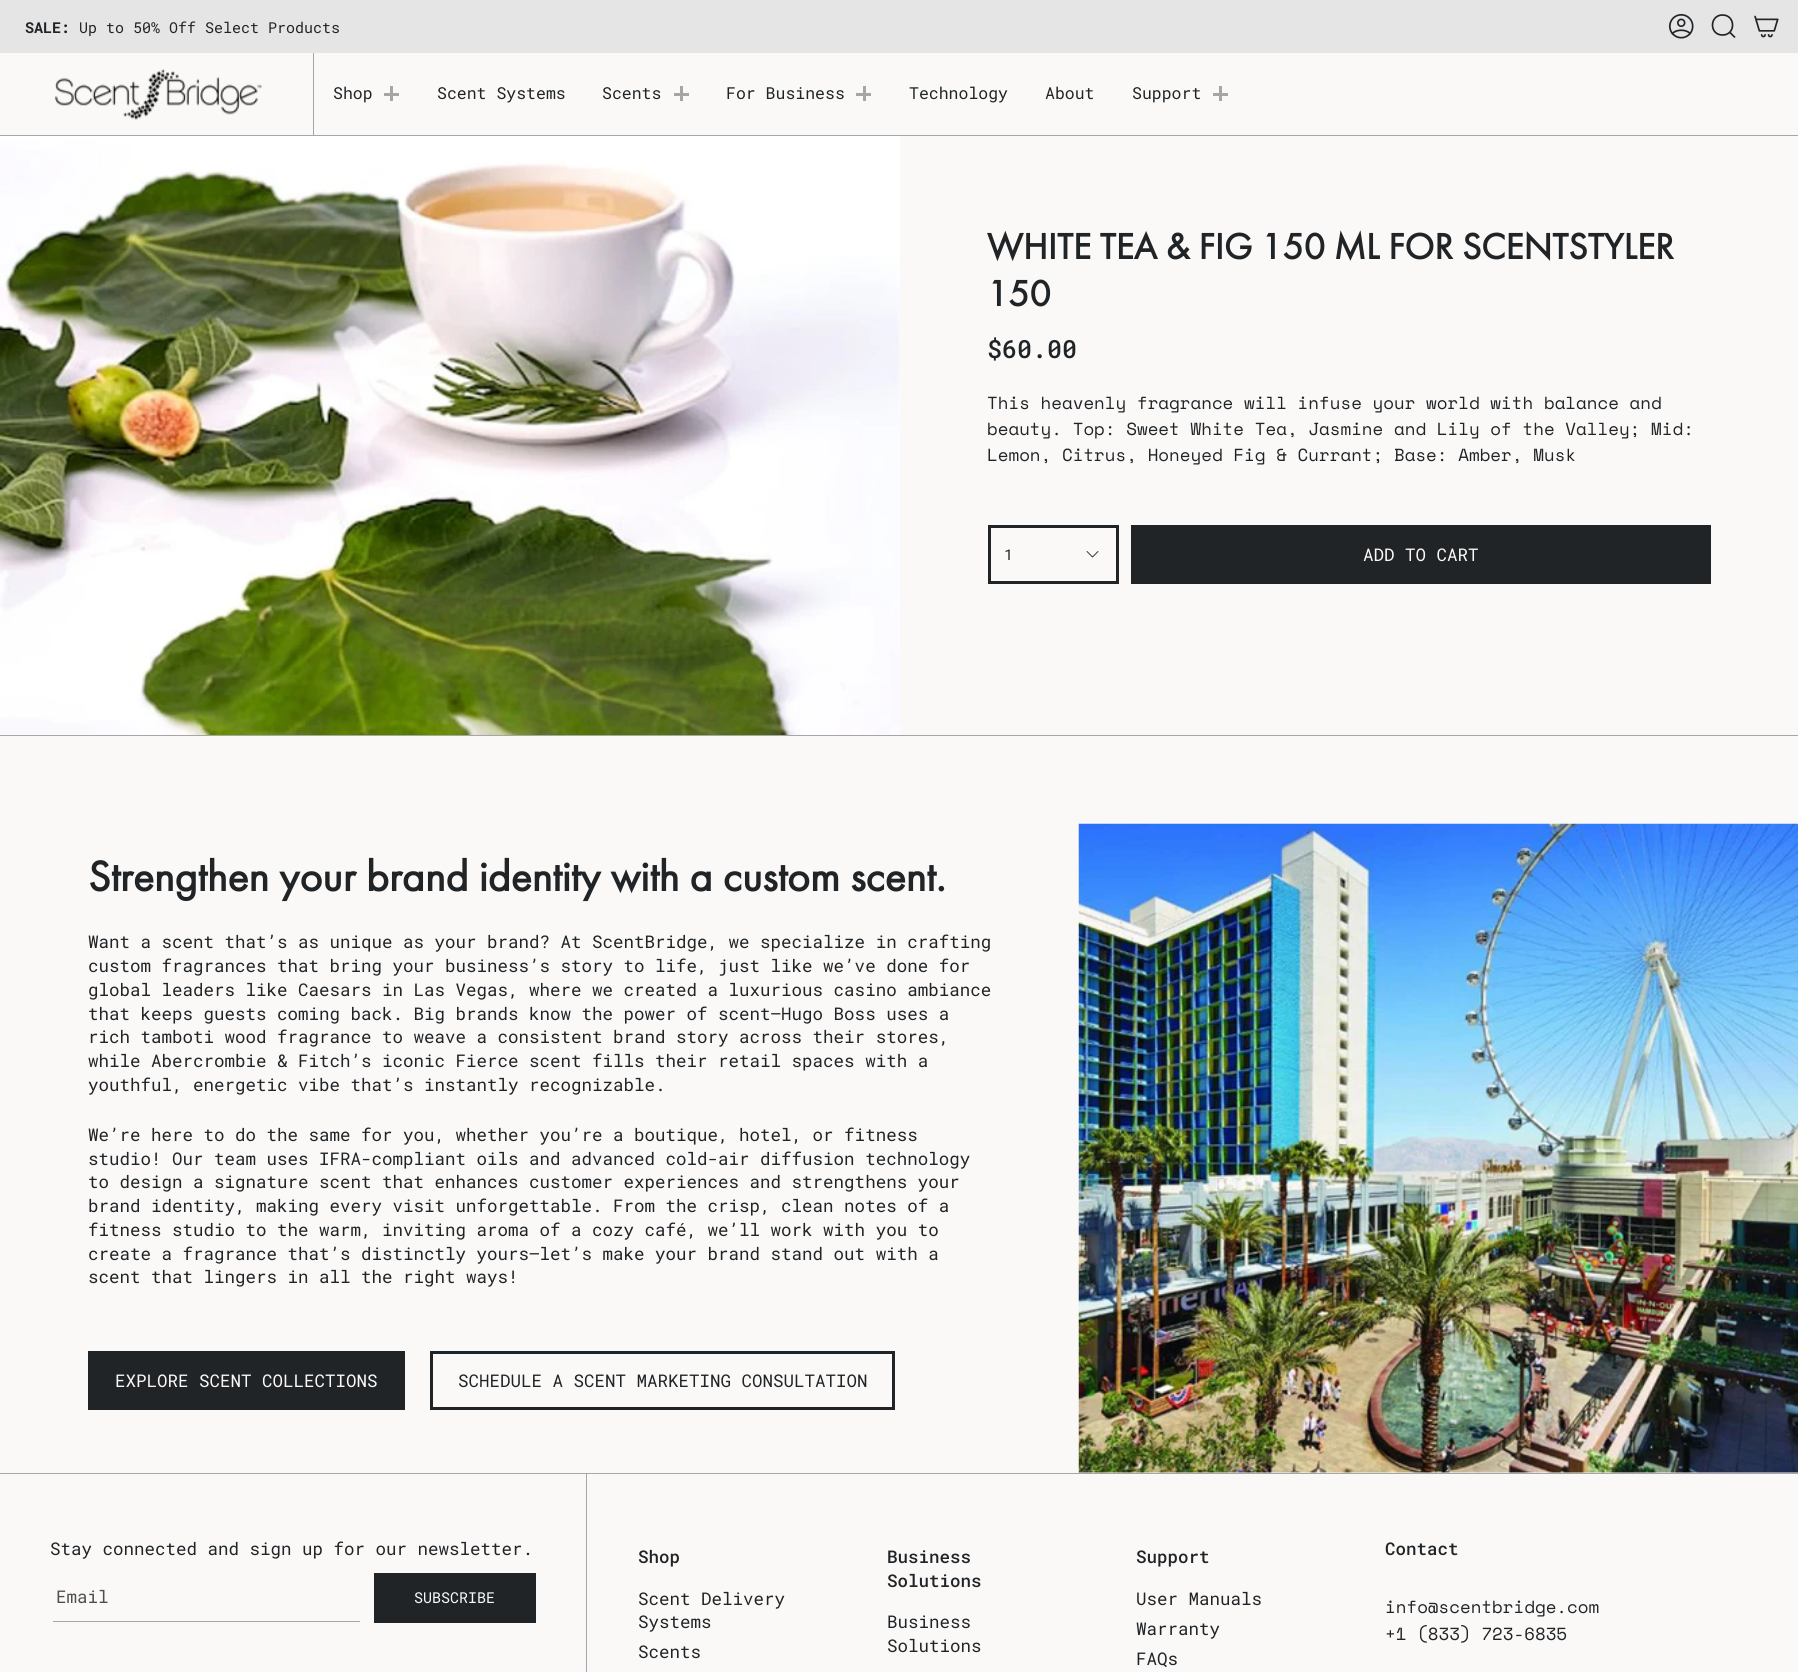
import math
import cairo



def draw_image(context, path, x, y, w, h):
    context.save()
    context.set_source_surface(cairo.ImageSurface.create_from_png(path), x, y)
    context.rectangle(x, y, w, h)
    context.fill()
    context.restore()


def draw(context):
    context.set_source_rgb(250 / 255, 249 / 255, 248 / 255)
    context.paint()
    context.set_source_rgb(229 / 255, 229 / 255, 229 / 255)
    context.rectangle(0, 0, 1798, 53)
    context.fill()
    draw_image(context, "images/1.png", 1668, 13, 26, 26)
    context.new_path()
    context.move_to(1722.5, 15)
    context.curve_to(1736, 15, 1736, 35.5, 1722, 35)
    context.curve_to(1709, 34.5, 1709.5, 15, 1722.5, 15)
    context.close_path()
    context.move_to(1729.5, 32)
    context.line_to(1735, 37.5)
    context.set_source_rgb(33 / 255, 36 / 255, 39 / 255)
    context.set_line_width(1.7)
    context.stroke()
    draw_image(context, "images/2.png", 1754, 15, 25, 23)
    context.set_source_rgb(166 / 255, 166 / 255, 166 / 255)
    context.rectangle(313, 53, 1, 82)
    context.fill()
    draw_image(context, "images/3.png", 54, 69, 209, 51)
    context.rectangle(384, 93, 15, 3)
    context.fill()
    context.rectangle(390, 86, 3, 15)
    context.fill()
    context.rectangle(674, 93, 15, 3)
    context.fill()
    context.rectangle(680, 86, 3, 15)
    context.fill()
    context.rectangle(856, 93, 15, 3)
    context.fill()
    context.rectangle(863, 86, 3, 15)
    context.fill()
    context.rectangle(1213, 93, 15, 3)
    context.fill()
    context.rectangle(1219, 86, 3, 15)
    context.fill()
    context.rectangle(0, 135, 1798, 1)
    context.fill()
    context.rectangle(0, 735, 1798, 1)
    context.fill()
    draw_image(context, "images/4.png", 0, 136, 900, 599)
    context.rectangle(989.5, 526.5, 128, 56)
    context.set_source_rgb(33 / 255, 36 / 255, 39 / 255)
    context.set_line_width(3)
    context.stroke()
    context.new_path()
    context.move_to(1087, 551.5)
    context.line_to(1092.5, 557)
    context.line_to(1098, 551.5)
    context.set_line_width(0.9)
    context.set_line_cap(cairo.LineCap.ROUND)
    context.set_line_join(cairo.LineJoin.ROUND)
    context.stroke()
    context.rectangle(1131, 525, 580, 59)
    context.fill()
    context.rectangle(88, 1351, 317, 59)
    context.fill()
    context.rectangle(431.5, 1352.5, 462, 56)
    context.set_line_width(3)
    context.set_line_cap(cairo.LineCap.BUTT)
    context.set_line_join(cairo.LineJoin.MITER)
    context.stroke()
    draw_image(context, "images/5.png", 1078, 823, 720, 650)
    context.set_source_rgb(166 / 255, 166 / 255, 166 / 255)
    context.rectangle(0, 1473, 1798, 1)
    context.fill()
    context.rectangle(586, 1474, 1, 198)
    context.fill()
    context.rectangle(53, 1621, 307, 1)
    context.fill()
    context.set_source_rgb(33 / 255, 36 / 255, 39 / 255)
    context.rectangle(374, 1573, 162, 50)
    context.fill()
    context.select_font_face("Roboto Mono", cairo.FontSlant.NORMAL, cairo.FontWeight.BOLD)
    context.set_font_size(15)
    context.move_to(25, 33)
    context.show_text("SALE:")
    context.select_font_face("Roboto Mono")
    context.move_to(79, 33)
    context.show_text("Up to 50% Off Select Products")
    context.set_font_size(16.5)
    context.move_to(333, 99)
    context.show_text("Shop")
    context.move_to(437, 99)
    context.show_text("Scent Systems")
    context.move_to(602, 99)
    context.show_text("Scents")
    context.move_to(726, 99)
    context.show_text("For Business")
    context.move_to(909, 99)
    context.show_text("Technology")
    context.move_to(1045, 99)
    context.show_text("About")
    context.move_to(1132, 99)
    context.show_text("Support")
    context.select_font_face("Futura PT", cairo.FontSlant.NORMAL, cairo.FontWeight.BOLD)
    context.set_font_size(37.5)
    context.move_to(987, 259)
    context.show_text("WHITE TEA & FIG 150 ML FOR SCENTSTYLER")
    context.move_to(987, 306)
    context.show_text("150")
    context.select_font_face("Roboto Mono Medium")
    context.set_font_size(25)
    context.move_to(987, 358)
    context.show_text("$60.00")
    context.select_font_face("Space Mono")
    context.set_font_size(17.5)
    context.move_to(987, 409)
    context.show_text("This heavenly fragrance will infuse your world with balance and")
    context.move_to(987, 435)
    context.show_text("beauty. Top: Sweet White Tea, Jasmine and Lily of the Valley; Mid:")
    context.move_to(987, 461)
    context.show_text("Lemon, Citrus, Honeyed Fig & Currant; Base: Amber, Musk")
    context.select_font_face("Roboto Mono")
    context.set_font_size(15)
    context.move_to(1004, 560)
    context.show_text("1")
    context.set_font_size(17.5)
    context.set_source_rgb(250 / 255, 249 / 255, 248 / 255)
    context.move_to(1363, 561)
    context.show_text("ADD TO CART")
    context.select_font_face("Futura PT", cairo.FontSlant.NORMAL, cairo.FontWeight.BOLD)
    context.set_font_size(43.75)
    context.set_source_rgb(33 / 255, 36 / 255, 39 / 255)
    context.move_to(88, 891)
    context.show_text("Strengthen your brand identity with a custom scent.")
    context.select_font_face("Roboto Mono")
    context.set_font_size(17.5)
    context.move_to(88, 948)
    context.show_text("Want a scent that’s as unique as your brand? At ScentBridge, we specialize in crafting")
    context.move_to(88, 972)
    context.show_text("custom fragrances that bring your business’s story to life, just like we’ve done for")
    context.move_to(88, 996)
    context.show_text("global leaders like Caesars in Las Vegas, where we created a luxurious casino ambiance")
    context.move_to(88, 1020)
    context.show_text("that keeps guests coming back. Big brands know the power of scent—Hugo Boss uses a")
    context.move_to(88, 1043)
    context.show_text("rich tamboti wood fragrance to weave a consistent brand story across their stores,")
    context.move_to(88, 1067)
    context.show_text("while Abercrombie & Fitch’s iconic Fierce scent fills their retail spaces with a")
    context.move_to(88, 1091)
    context.show_text("youthful, energetic vibe that’s instantly recognizable.")
    context.move_to(88, 1141)
    context.show_text("We’re here to do the same for you, whether you’re a boutique, hotel, or fitness")
    context.move_to(88, 1165)
    context.show_text("studio! Our team uses IFRA-compliant oils and advanced cold-air diffusion technology")
    context.move_to(88, 1188)
    context.show_text("to design a signature scent that enhances customer experiences and strengthens your")
    context.move_to(88, 1212)
    context.show_text("brand identity, making every visit unforgettable. From the crisp, clean notes of a")
    context.move_to(88, 1236)
    context.show_text("fitness studio to the warm, inviting aroma of a cozy café, we’ll work with you to")
    context.move_to(88, 1260)
    context.show_text("create a fragrance that’s distinctly yours—let’s make your brand stand out with a")
    context.move_to(88, 1283)
    context.show_text("scent that lingers in all the right ways!")
    context.set_source_rgb(250 / 255, 249 / 255, 248 / 255)
    context.move_to(115, 1387)
    context.show_text("EXPLORE SCENT COLLECTIONS")
    context.set_source_rgb(33 / 255, 36 / 255, 39 / 255)
    context.move_to(458, 1387)
    context.show_text("SCHEDULE A SCENT MARKETING CONSULTATION")
    context.move_to(50, 1555)
    context.show_text("Stay connected and sign up for our newsletter.")
    context.set_source_rgb(76 / 255, 79 / 255, 81 / 255)
    context.move_to(56, 1603)
    context.show_text("Email")
    context.set_font_size(15)
    context.set_source_rgb(250 / 255, 249 / 255, 248 / 255)
    context.move_to(414, 1603)
    context.show_text("SUBSCRIBE")
    context.select_font_face("Roboto Mono Medium")
    context.set_font_size(17.5)
    context.set_source_rgb(33 / 255, 36 / 255, 39 / 255)
    context.move_to(638, 1563)
    context.show_text("Shop")
    context.select_font_face("Roboto Mono")
    context.move_to(638, 1605)
    context.show_text("Scent Delivery")
    context.move_to(638, 1628)
    context.show_text("Systems")
    context.move_to(638, 1658)
    context.show_text("Scents")
    context.select_font_face("Roboto Mono Medium")
    context.move_to(887, 1563)
    context.show_text("Business")
    context.move_to(887, 1587)
    context.show_text("Solutions")
    context.select_font_face("Roboto Mono")
    context.move_to(887, 1628)
    context.show_text("Business")
    context.move_to(887, 1652)
    context.show_text("Solutions")
    context.select_font_face("Roboto Mono Medium")
    context.move_to(1136, 1563)
    context.show_text("Support")
    context.select_font_face("Roboto Mono")
    context.move_to(1136, 1605)
    context.show_text("User Manuals")
    context.move_to(1136, 1635)
    context.show_text("Warranty")
    context.move_to(1136, 1665)
    context.show_text("FAQs")
    context.select_font_face("Roboto Mono Medium")
    context.move_to(1385, 1555)
    context.show_text("Contact")
    context.select_font_face("Space Mono")
    context.move_to(1385, 1613)
    context.show_text("info@scentbridge.com")
    context.move_to(1385, 1640)
    context.show_text("+1 (833) 723-6835")


surface = cairo.ImageSurface(cairo.Format.RGB24, 1798, 1672)
context = cairo.Context(surface)
options = cairo.FontOptions()
options.set_hint_metrics(cairo.HintMetrics.OFF)
options.set_hint_style(cairo.HintStyle.NONE)
context.set_font_options(options)
context.set_miter_limit(4)
draw(context)
surface.write_to_png("out.png")
